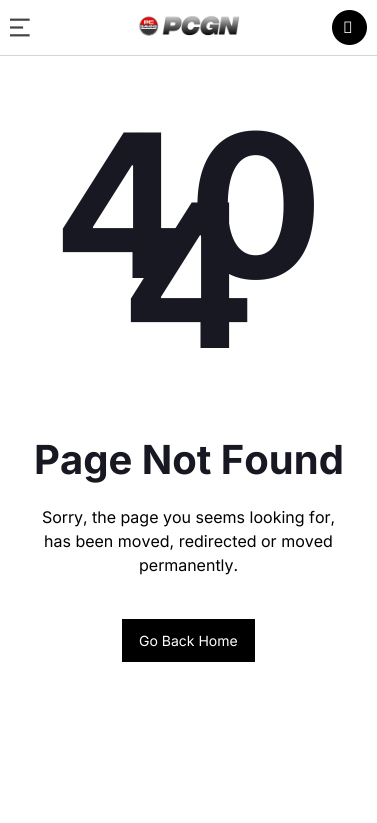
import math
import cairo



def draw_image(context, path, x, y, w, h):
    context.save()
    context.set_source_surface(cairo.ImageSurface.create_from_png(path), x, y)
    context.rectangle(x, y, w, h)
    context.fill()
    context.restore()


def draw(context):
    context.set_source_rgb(1, 1, 1)
    context.paint()
    context.set_source_rgb(212 / 255, 212 / 255, 212 / 255)
    context.rectangle(0, 55, 377, 1)
    context.fill()
    draw_image(context, "images/1.png", 10, 18, 20, 19)
    draw_image(context, "images/2.png", 138, 15, 102, 21)
    context.set_source_rgb(0, 0, 0)
    context.arc(349.5, 27.5, 17.5, 0, 2 * math.pi)
    context.fill()
    draw_image(context, "images/3.png", 344, 21, 8, 12)
    context.rectangle(122, 619, 133, 43)
    context.fill()
    context.select_font_face("Inter", cairo.FontSlant.NORMAL, cairo.FontWeight.BOLD)
    context.set_font_size(200)
    context.set_source_rgb(24 / 255, 24 / 255, 35 / 255)
    context.move_to(53, 278)
    context.show_text("40")
    context.move_to(121, 348)
    context.show_text("4")
    context.set_font_size(40)
    context.move_to(34, 474)
    context.show_text("Page Not Found")
    context.select_font_face("Inter")
    context.set_font_size(16)
    context.set_source_rgb(0, 0, 0)
    context.move_to(42, 523)
    context.show_text("Sorry, the page you seems looking for,")
    context.move_to(44, 547)
    context.show_text("has been moved, redirected or moved")
    context.move_to(139, 571)
    context.show_text("permanently.")
    context.set_font_size(14)
    context.set_source_rgb(1, 1, 1)
    context.move_to(139, 646)
    context.show_text("Go Back Home")


surface = cairo.ImageSurface(cairo.Format.RGB24, 377, 823)
context = cairo.Context(surface)
options = cairo.FontOptions()
options.set_hint_metrics(cairo.HintMetrics.OFF)
options.set_hint_style(cairo.HintStyle.NONE)
context.set_font_options(options)
context.set_miter_limit(4)
draw(context)
surface.write_to_png("out.png")
